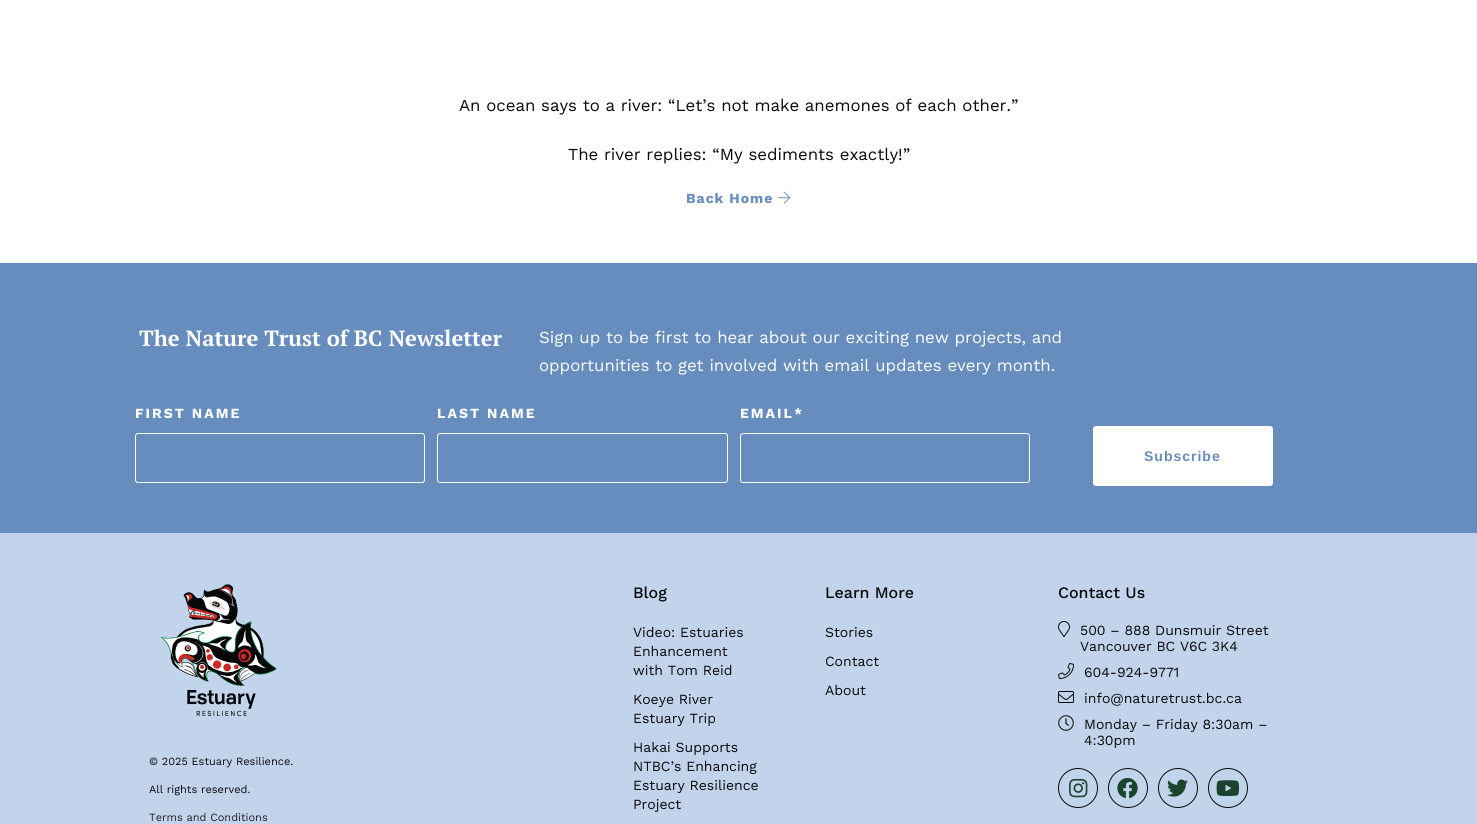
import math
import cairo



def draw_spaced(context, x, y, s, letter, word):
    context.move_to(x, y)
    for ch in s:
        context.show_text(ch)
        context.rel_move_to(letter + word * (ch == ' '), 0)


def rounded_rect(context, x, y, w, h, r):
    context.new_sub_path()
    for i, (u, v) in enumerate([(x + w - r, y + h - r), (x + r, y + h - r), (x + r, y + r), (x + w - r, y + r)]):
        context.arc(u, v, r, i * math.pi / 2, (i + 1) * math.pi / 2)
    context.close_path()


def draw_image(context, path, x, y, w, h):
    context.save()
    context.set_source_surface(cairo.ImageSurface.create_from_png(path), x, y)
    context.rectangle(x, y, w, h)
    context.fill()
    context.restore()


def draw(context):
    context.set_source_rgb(1, 1, 1)
    context.paint()
    draw_image(context, "images/1.png", 778, 191, 13, 13)
    context.set_source_rgb(102 / 255, 141 / 255, 189 / 255)
    context.rectangle(0, 263, 1477, 270)
    context.fill()
    rounded_rect(context, 135.5, 433.5, 289, 49, 2.5)
    context.set_source_rgb(1, 1, 1)
    context.set_line_width(1)
    context.stroke()
    rounded_rect(context, 437.5, 433.5, 290, 49, 2.5)
    context.stroke()
    rounded_rect(context, 740.5, 433.5, 289, 49, 2.5)
    context.stroke()
    rounded_rect(context, 1093, 426, 180, 60, 3)
    context.fill()
    context.set_source_rgb(194 / 255, 212 / 255, 235 / 255)
    context.rectangle(0, 533, 1477, 291)
    context.fill()
    draw_image(context, "images/2.png", 160, 584, 117, 133)
    draw_image(context, "images/3.png", 1058, 621, 12, 16)
    draw_image(context, "images/4.png", 1058, 663, 16, 16)
    draw_image(context, "images/5.png", 1058, 691, 16, 12)
    draw_image(context, "images/6.png", 1058, 715, 16, 16)
    context.arc(1078, 788, 19.5, 0, 2 * math.pi)
    context.set_source_rgb(10 / 255, 10 / 255, 10 / 255)
    context.stroke()
    draw_image(context, "images/7.png", 1069, 778, 19, 20)
    context.arc(1128, 788, 19.5, 0, 2 * math.pi)
    context.stroke()
    draw_image(context, "images/8.png", 1117, 778, 21, 21)
    context.arc(1178, 788, 19.5, 0, 2 * math.pi)
    context.stroke()
    draw_image(context, "images/9.png", 1167, 779, 21, 18)
    context.arc(1228, 788, 19.5, 0, 2 * math.pi)
    context.stroke()
    draw_image(context, "images/10.png", 1216, 780, 23, 16)
    context.select_font_face("Work Sans")
    context.set_font_size(16.8)
    context.move_to(459, 111)
    context.show_text("An ocean says to a river: “Let’s not make anemones of each other.”")
    context.move_to(568, 160)
    context.show_text("The river replies: “My sediments exactly!”")
    context.select_font_face("Work Sans", cairo.FontSlant.NORMAL, cairo.FontWeight.BOLD)
    context.set_font_size(14)
    context.set_source_rgb(102 / 255, 141 / 255, 189 / 255)
    draw_spaced(context, 686, 203, "Back Home", 1, 0)
    context.select_font_face("PT Serif", cairo.FontSlant.NORMAL, cairo.FontWeight.BOLD)
    context.set_font_size(22)
    context.set_source_rgb(1, 1, 1)
    context.move_to(139, 346)
    context.show_text("The Nature Trust of BC Newsletter")
    context.select_font_face("Work Sans")
    context.set_font_size(16.8)
    context.move_to(539, 343)
    context.show_text("Sign up to be first to hear about our exciting new projects, and")
    context.move_to(539, 371)
    context.show_text("opportunities to get involved with email updates every month.")
    context.select_font_face("Work Sans", cairo.FontSlant.NORMAL, cairo.FontWeight.BOLD)
    context.set_font_size(14)
    draw_spaced(context, 135, 418, "FIRST NAME", 2, 0)
    draw_spaced(context, 437, 418, "LAST NAME", 2, 0)
    draw_spaced(context, 740, 418, "EMAIL*", 2, 0)
    context.select_font_face("Liberation Sans", cairo.FontSlant.NORMAL, cairo.FontWeight.BOLD)
    context.set_source_rgb(102 / 255, 141 / 255, 189 / 255)
    draw_spaced(context, 1144, 461, "Subscribe", 1, 0)
    context.select_font_face("Work Sans")
    context.set_font_size(11)
    context.set_source_rgb(10 / 255, 10 / 255, 10 / 255)
    context.move_to(149, 765)
    context.show_text("© 2025 Estuary Resilience.")
    context.move_to(149, 793)
    context.show_text("All rights reserved.")
    context.set_source_rgb(35 / 255, 35 / 255, 35 / 255)
    context.move_to(149, 821)
    context.show_text("Terms and Conditions")
    context.select_font_face("Work Sans Medium")
    context.set_font_size(16)
    context.set_source_rgb(10 / 255, 10 / 255, 10 / 255)
    context.move_to(633, 598)
    context.show_text("Blog")
    context.select_font_face("Work Sans")
    context.set_font_size(14)
    context.move_to(633, 637)
    context.show_text("Video: Estuaries")
    context.move_to(633, 656)
    context.show_text("Enhancement")
    context.move_to(633, 675)
    context.show_text("with Tom Reid")
    context.move_to(633, 704)
    context.show_text("Koeye River")
    context.move_to(633, 723)
    context.show_text("Estuary Trip")
    context.move_to(633, 752)
    context.show_text("Hakai Supports")
    context.move_to(633, 771)
    context.show_text("NTBC’s Enhancing")
    context.move_to(633, 790)
    context.show_text("Estuary Resilience")
    context.move_to(633, 809)
    context.show_text("Project")
    context.select_font_face("Work Sans Medium")
    context.set_font_size(16)
    context.move_to(825, 598)
    context.show_text("Learn More")
    context.select_font_face("Work Sans")
    context.set_font_size(14)
    context.move_to(825, 637)
    context.show_text("Stories")
    context.move_to(825, 666)
    context.show_text("Contact")
    context.move_to(825, 695)
    context.show_text("About")
    context.select_font_face("Work Sans Medium")
    context.set_font_size(16)
    context.move_to(1058, 598)
    context.show_text("Contact Us")
    context.select_font_face("Work Sans")
    context.set_font_size(14)
    context.move_to(1080, 635)
    context.show_text("500 – 888 Dunsmuir Street")
    context.move_to(1080, 651)
    context.show_text("Vancouver BC V6C 3K4")
    context.move_to(1084, 677)
    context.show_text("604-924-9771")
    context.move_to(1084, 703)
    context.show_text("info@naturetrust.bc.ca")
    context.move_to(1084, 729)
    context.show_text("Monday – Friday 8:30am –")
    context.move_to(1084, 745)
    context.show_text("4:30pm")


surface = cairo.ImageSurface(cairo.Format.RGB24, 1477, 824)
context = cairo.Context(surface)
options = cairo.FontOptions()
options.set_hint_metrics(cairo.HintMetrics.OFF)
options.set_hint_style(cairo.HintStyle.NONE)
context.set_font_options(options)
context.set_miter_limit(4)
draw(context)
surface.write_to_png("out.png")
